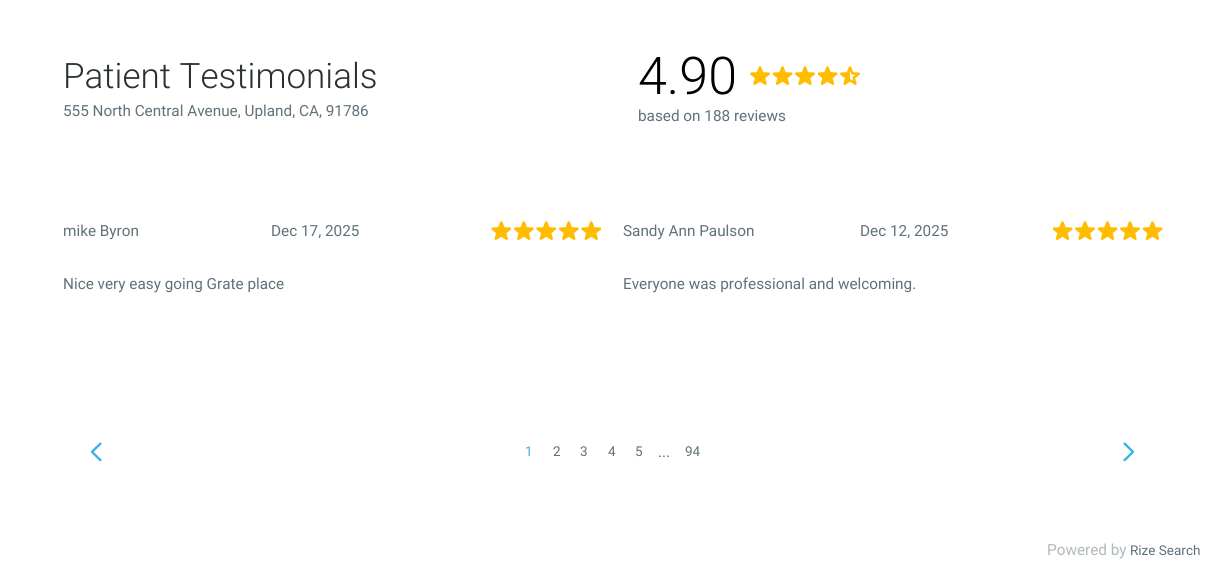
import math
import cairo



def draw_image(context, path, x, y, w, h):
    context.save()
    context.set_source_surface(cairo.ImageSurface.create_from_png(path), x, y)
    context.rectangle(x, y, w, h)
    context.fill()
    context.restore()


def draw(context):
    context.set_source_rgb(1, 1, 1)
    context.paint()
    draw_image(context, "images/1.png", 750, 66, 20, 19)
    draw_image(context, "images/2.png", 773, 66, 20, 19)
    draw_image(context, "images/1.png", 795, 66, 20, 19)
    draw_image(context, "images/2.png", 818, 66, 20, 19)
    draw_image(context, "images/3.png", 840, 66, 20, 19)
    draw_image(context, "images/4.png", 491, 221, 20, 19)
    draw_image(context, "images/5.png", 514, 221, 20, 19)
    draw_image(context, "images/4.png", 536, 221, 20, 19)
    draw_image(context, "images/5.png", 559, 221, 20, 19)
    draw_image(context, "images/4.png", 581, 221, 20, 19)
    draw_image(context, "images/2.png", 1053, 221, 20, 19)
    draw_image(context, "images/1.png", 1075, 221, 20, 19)
    draw_image(context, "images/2.png", 1098, 221, 20, 19)
    draw_image(context, "images/1.png", 1120, 221, 20, 19)
    draw_image(context, "images/2.png", 1143, 221, 20, 19)
    draw_image(context, "images/6.png", 91, 442, 11, 20)
    draw_image(context, "images/7.png", 1123, 442, 11, 20)
    context.select_font_face("Roboto Light")
    context.set_font_size(35)
    context.set_source_rgb(42 / 255, 49 / 255, 53 / 255)
    context.move_to(63, 88)
    context.show_text("Patient Testimonials")
    context.select_font_face("Roboto")
    context.set_font_size(15.3)
    context.set_source_rgb(96 / 255, 113 / 255, 121 / 255)
    context.move_to(63, 116)
    context.show_text("555 North Central Avenue, Upland, CA, 91786")
    context.select_font_face("Roboto Light")
    context.set_font_size(52)
    context.set_source_rgb(0, 0, 0)
    context.move_to(638, 94)
    context.show_text("4.90")
    context.select_font_face("Roboto")
    context.set_font_size(15.3)
    context.set_source_rgb(96 / 255, 113 / 255, 121 / 255)
    context.move_to(638, 121)
    context.show_text("based on 188 reviews")
    context.move_to(63, 236)
    context.show_text("mike Byron")
    context.move_to(271, 236)
    context.show_text("Dec 17, 2025")
    context.move_to(63, 289)
    context.show_text("Nice very easy going Grate place")
    context.move_to(623, 236)
    context.show_text("Sandy Ann Paulson")
    context.move_to(860, 236)
    context.show_text("Dec 12, 2025")
    context.move_to(623, 289)
    context.show_text("Everyone was professional and welcoming.")
    context.set_font_size(13.5)
    context.set_source_rgb(56 / 255, 176 / 255, 234 / 255)
    context.move_to(525, 456)
    context.show_text("1")
    context.set_source_rgb(96 / 255, 113 / 255, 121 / 255)
    context.move_to(553, 456)
    context.show_text("2")
    context.move_to(580, 456)
    context.show_text("3")
    context.move_to(608, 456)
    context.show_text("4")
    context.move_to(635, 456)
    context.show_text("5")
    context.move_to(685, 456)
    context.show_text("94")
    context.set_font_size(15.3)
    context.move_to(658, 457)
    context.show_text("...")
    context.set_source_rgb(175 / 255, 184 / 255, 188 / 255)
    context.move_to(1047, 555)
    context.show_text("Powered by")
    context.set_font_size(13.5)
    context.set_source_rgb(96 / 255, 113 / 255, 121 / 255)
    context.move_to(1130, 555)
    context.show_text("Rize Search")


surface = cairo.ImageSurface(cairo.Format.RGB24, 1225, 568)
context = cairo.Context(surface)
options = cairo.FontOptions()
options.set_hint_metrics(cairo.HintMetrics.OFF)
options.set_hint_style(cairo.HintStyle.NONE)
context.set_font_options(options)
context.set_miter_limit(4)
draw(context)
surface.write_to_png("out.png")
